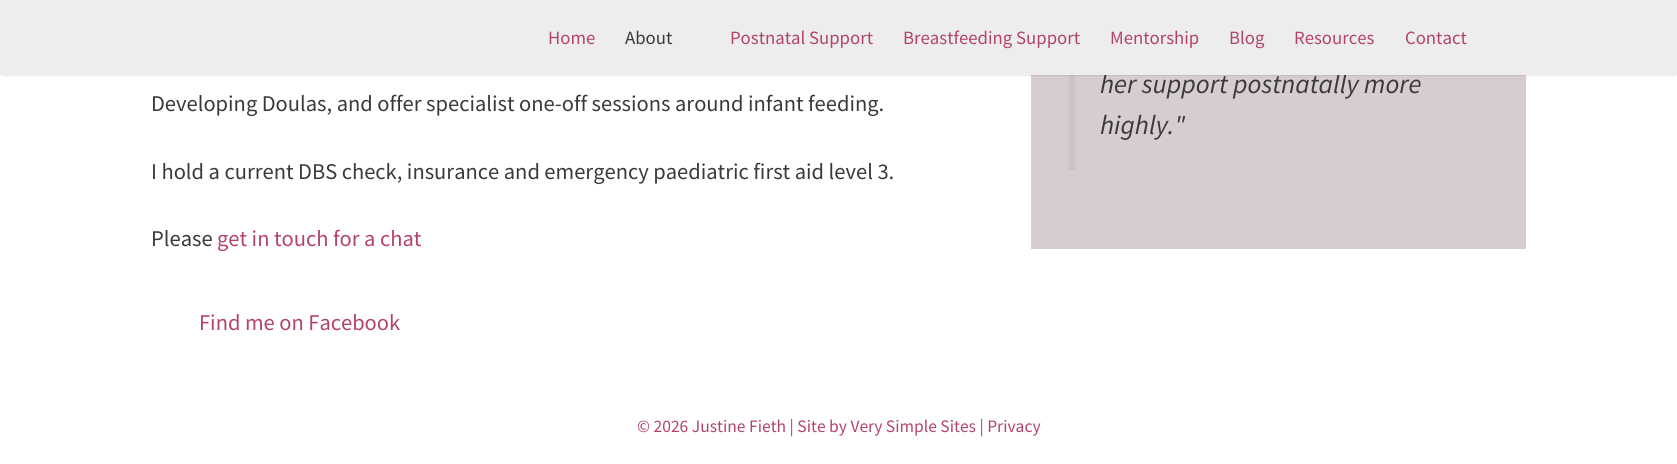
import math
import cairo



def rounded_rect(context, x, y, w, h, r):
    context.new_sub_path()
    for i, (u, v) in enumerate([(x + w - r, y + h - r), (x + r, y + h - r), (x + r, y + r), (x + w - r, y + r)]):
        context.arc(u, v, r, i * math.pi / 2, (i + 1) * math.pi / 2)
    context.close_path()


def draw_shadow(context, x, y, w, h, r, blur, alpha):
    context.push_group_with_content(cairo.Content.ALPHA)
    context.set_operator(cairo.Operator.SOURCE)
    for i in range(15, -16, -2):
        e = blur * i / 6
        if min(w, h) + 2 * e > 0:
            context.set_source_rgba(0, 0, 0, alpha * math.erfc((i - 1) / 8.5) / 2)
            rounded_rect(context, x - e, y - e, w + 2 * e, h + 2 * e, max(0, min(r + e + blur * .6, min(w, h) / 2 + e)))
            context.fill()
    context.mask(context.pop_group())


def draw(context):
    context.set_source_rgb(1, 1, 1)
    context.paint()
    context.set_source_rgb(215 / 255, 204 / 255, 208 / 255)
    context.rectangle(1031, 75, 495, 174)
    context.fill()
    context.set_source_rgb(204 / 255, 194 / 255, 198 / 255)
    context.rectangle(1069, 75, 6, 95)
    context.fill()
    context.set_source_rgb(0, 0, 0)
    draw_shadow(context, 3, 5, 1672, 70, 0, 1, 0.2)
    context.select_font_face("Source Sans Pro")
    context.set_font_size(22.5)
    context.set_source_rgb(58 / 255, 58 / 255, 58 / 255)
    context.move_to(151, 111)
    context.show_text("Developing Doulas, and offer specialist one-off sessions around infant feeding.")
    context.move_to(151, 179)
    context.show_text("I hold a current DBS check, insurance and emergency paediatric first aid level 3.")
    context.move_to(151, 246)
    context.show_text("Please")
    context.set_source_rgb(180 / 255, 67 / 255, 108 / 255)
    context.move_to(217, 246)
    context.show_text("get in touch for a chat")
    context.move_to(199, 330)
    context.show_text("Find me on Facebook")
    context.select_font_face("Source Sans Pro", cairo.FontSlant.ITALIC)
    context.set_font_size(27)
    context.set_source_rgb(58 / 255, 58 / 255, 58 / 255)
    context.move_to(1100, 93)
    context.show_text("her support postnatally more")
    context.set_source_rgb(237 / 255, 237 / 255, 237 / 255)
    context.rectangle(0, 0, 1677, 75)
    context.fill()
    context.select_font_face("Source Sans Pro")
    context.set_font_size(18.75)
    context.set_source_rgb(180 / 255, 67 / 255, 108 / 255)
    context.move_to(1405, 44)
    context.show_text("Contact")
    context.move_to(1294, 44)
    context.show_text("Resources")
    context.move_to(1229, 44)
    context.show_text("Blog")
    context.move_to(1110, 44)
    context.show_text("Mentorship")
    context.move_to(903, 44)
    context.show_text("Breastfeeding Support")
    context.move_to(730, 44)
    context.show_text("Postnatal Support")
    context.set_source_rgb(58 / 255, 58 / 255, 58 / 255)
    context.move_to(625, 44)
    context.show_text("About")
    context.set_source_rgb(180 / 255, 67 / 255, 108 / 255)
    context.move_to(548, 44)
    context.show_text("Home")
    context.select_font_face("Source Sans Pro", cairo.FontSlant.ITALIC)
    context.set_font_size(27)
    context.set_source_rgb(58 / 255, 58 / 255, 58 / 255)
    context.move_to(1100, 134)
    context.show_text("highly.\"")
    context.select_font_face("Source Sans Pro")
    context.set_font_size(17.5)
    context.set_source_rgb(180 / 255, 67 / 255, 108 / 255)
    context.move_to(637, 432)
    context.show_text("© 2026 Justine Fieth | Site by Very Simple Sites | Privacy")


surface = cairo.ImageSurface(cairo.Format.RGB24, 1677, 464)
context = cairo.Context(surface)
options = cairo.FontOptions()
options.set_hint_metrics(cairo.HintMetrics.OFF)
options.set_hint_style(cairo.HintStyle.NONE)
context.set_font_options(options)
context.set_miter_limit(4)
draw(context)
surface.write_to_png("out.png")
